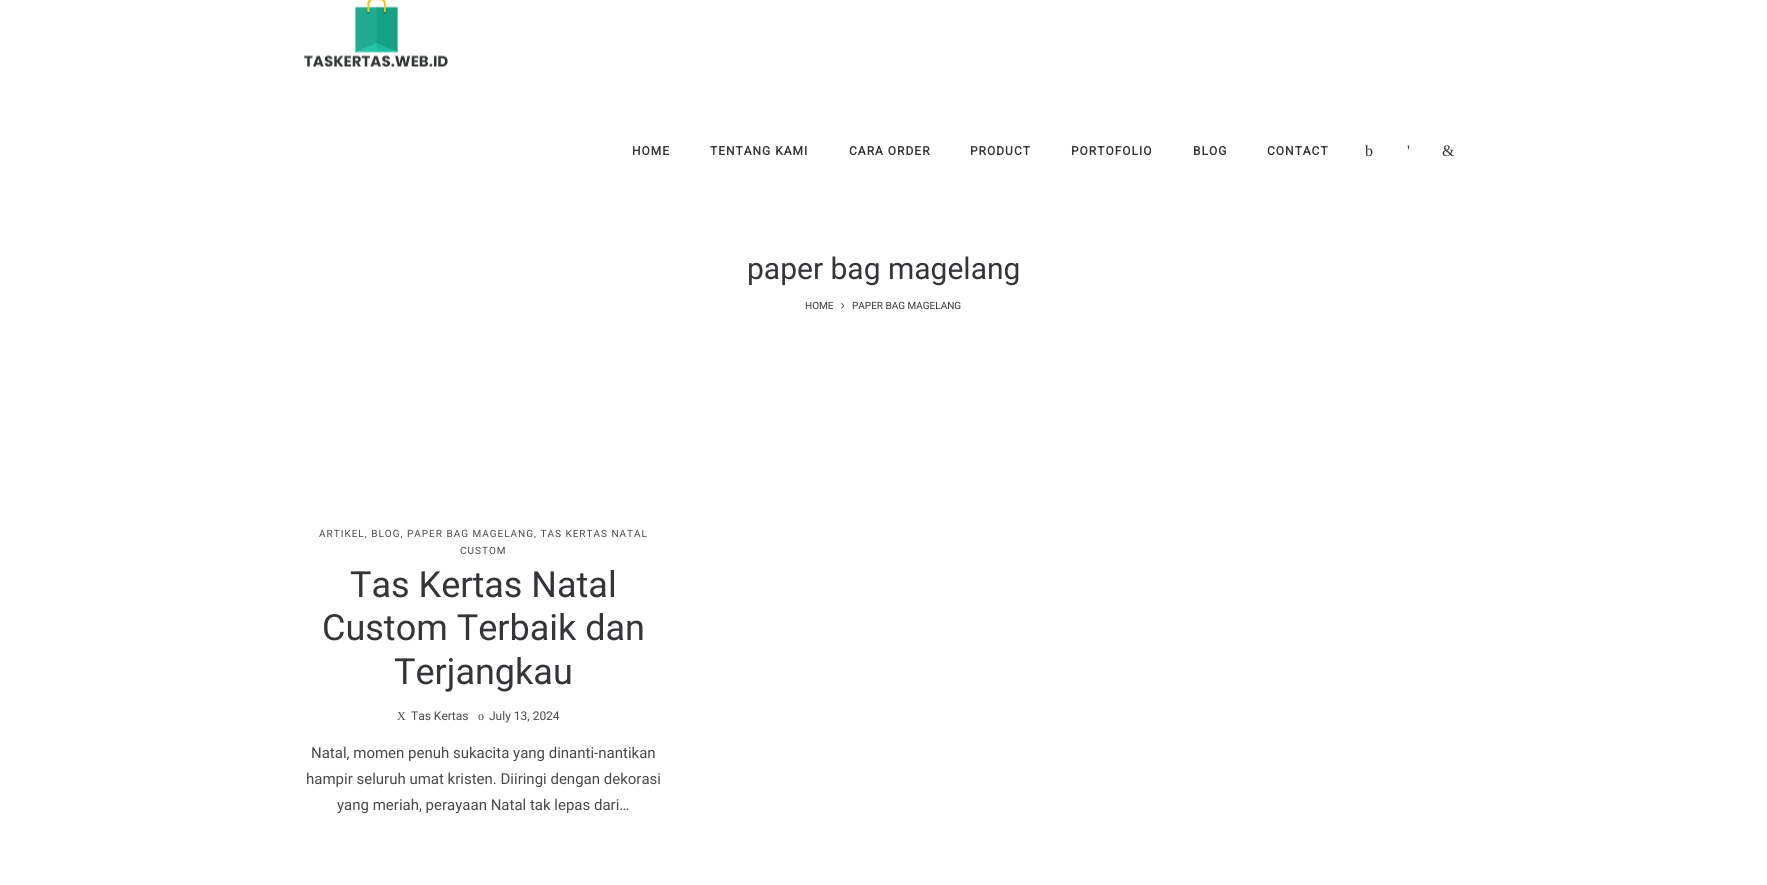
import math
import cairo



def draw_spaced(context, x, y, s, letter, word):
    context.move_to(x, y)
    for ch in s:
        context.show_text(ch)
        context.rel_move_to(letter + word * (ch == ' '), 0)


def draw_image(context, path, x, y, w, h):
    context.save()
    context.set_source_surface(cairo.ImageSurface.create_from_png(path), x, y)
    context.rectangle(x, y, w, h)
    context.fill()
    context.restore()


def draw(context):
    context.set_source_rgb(1, 1, 1)
    context.paint()
    draw_image(context, "images/1.png", 304, 0, 144, 67)
    draw_image(context, "images/2.png", 841, 303, 4, 6)
    context.select_font_face("Roboto", cairo.FontSlant.NORMAL, cairo.FontWeight.BOLD)
    context.set_font_size(12)
    context.set_source_rgb(52 / 255, 53 / 255, 56 / 255)
    draw_spaced(context, 632, 155, "HOME", 1, 0)
    draw_spaced(context, 710, 155, "TENTANG KAMI", 1, 0)
    draw_spaced(context, 849, 155, "CARA ORDER", 1, 0)
    draw_spaced(context, 970, 155, "PRODUCT", 1, 0)
    draw_spaced(context, 1071, 155, "PORTOFOLIO", 1, 0)
    draw_spaced(context, 1193, 155, "BLOG", 1, 0)
    draw_spaced(context, 1267, 155, "CONTACT", 1, 0)
    context.select_font_face("Liberation Serif")
    context.set_font_size(16)
    context.move_to(1365, 156)
    context.show_text("b")
    context.move_to(1407, 156)
    context.show_text("'")
    context.move_to(1442, 156)
    context.show_text("&")
    context.select_font_face("Roboto")
    context.set_font_size(30)
    context.move_to(747, 279)
    context.show_text("paper bag magelang")
    context.set_font_size(10)
    context.move_to(805, 309)
    context.show_text("HOME")
    context.move_to(852, 309)
    context.show_text("PAPER BAG MAGELANG")
    context.set_source_rgb(73 / 255, 73 / 255, 73 / 255)
    draw_spaced(context, 319, 537, "ARTIKEL, BLOG, PAPER BAG MAGELANG, TAS KERTAS NATAL", 1, 0)
    draw_spaced(context, 460, 554, "CUSTOM", 1, 0)
    context.set_font_size(36)
    context.set_source_rgb(52 / 255, 53 / 255, 56 / 255)
    context.move_to(350, 597)
    context.show_text("Tas Kertas Natal")
    context.move_to(322, 640)
    context.show_text("Custom Terbaik dan")
    context.move_to(394, 684)
    context.show_text("Terjangkau")
    context.select_font_face("Liberation Serif")
    context.set_font_size(12)
    context.set_source_rgb(73 / 255, 73 / 255, 73 / 255)
    context.move_to(397, 720)
    context.show_text("X")
    context.select_font_face("Roboto")
    context.move_to(411, 720)
    context.show_text("Tas Kertas")
    context.select_font_face("Liberation Serif")
    context.move_to(478, 720)
    context.show_text("o")
    context.select_font_face("Roboto")
    context.move_to(489, 720)
    context.show_text("July 13, 2024")
    context.set_font_size(15)
    context.move_to(311, 758)
    context.show_text("Natal, momen penuh sukacita yang dinanti-nantikan")
    context.move_to(306, 784)
    context.show_text("hampir seluruh umat kristen. Diiringi dengan dekorasi")
    context.move_to(337, 810)
    context.show_text("yang meriah, perayaan Natal tak lepas dari…")


surface = cairo.ImageSurface(cairo.Format.RGB24, 1767, 885)
context = cairo.Context(surface)
options = cairo.FontOptions()
options.set_hint_metrics(cairo.HintMetrics.OFF)
options.set_hint_style(cairo.HintStyle.NONE)
context.set_font_options(options)
context.set_miter_limit(4)
draw(context)
surface.write_to_png("out.png")
